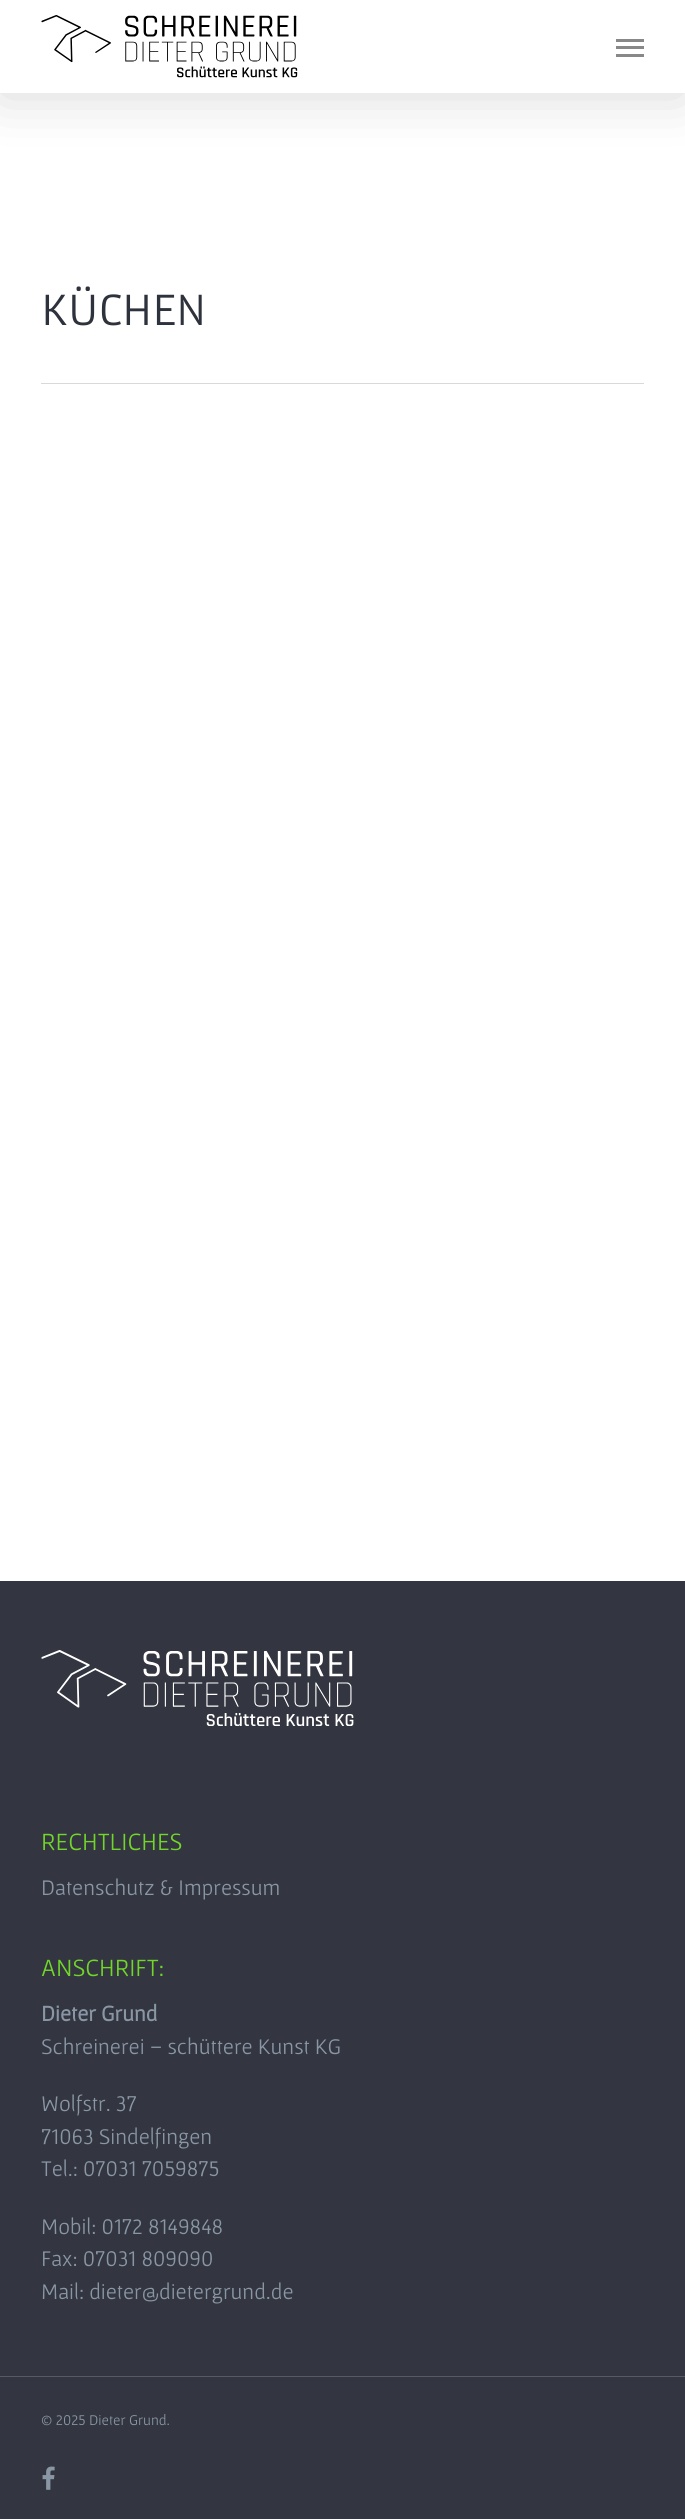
import math
import cairo



def rounded_rect(context, x, y, w, h, r):
    context.new_sub_path()
    for i, (u, v) in enumerate([(x + w - r, y + h - r), (x + r, y + h - r), (x + r, y + r), (x + w - r, y + r)]):
        context.arc(u, v, r, i * math.pi / 2, (i + 1) * math.pi / 2)
    context.close_path()


def draw_shadow(context, x, y, w, h, r, blur, alpha):
    context.push_group_with_content(cairo.Content.ALPHA)
    context.set_operator(cairo.Operator.SOURCE)
    for i in range(15, -16, -2):
        e = blur * i / 6
        if min(w, h) + 2 * e > 0:
            context.set_source_rgba(0, 0, 0, alpha * math.erfc((i - 1) / 8.5) / 2)
            rounded_rect(context, x - e, y - e, w + 2 * e, h + 2 * e, max(0, min(r + e + blur * .6, min(w, h) / 2 + e)))
            context.fill()
    context.mask(context.pop_group())


def draw_image(context, path, x, y, w, h):
    context.save()
    context.set_source_surface(cairo.ImageSurface.create_from_png(path), x, y)
    context.rectangle(x, y, w, h)
    context.fill()
    context.restore()


def draw(context):
    context.set_source_rgb(1, 1, 1)
    context.paint()
    context.save()
    context.set_fill_rule(cairo.FillRule.EVEN_ODD)
    context.new_path()
    context.move_to(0, 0)
    context.line_to(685, 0)
    context.line_to(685, 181)
    context.line_to(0, 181)
    context.close_path()
    context.move_to(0, 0)
    context.line_to(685, 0)
    context.line_to(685, 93)
    context.line_to(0, 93)
    context.close_path()
    context.clip()
    context.set_source_rgb(0, 0, 0)
    draw_shadow(context, 0, 4, 685, 92, 0, 28, 0.15)
    context.restore()
    context.set_source_rgba(1, 1, 1, 0.9)
    context.rectangle(0, 92, 685, 1)
    context.fill()
    draw_image(context, "images/1.png", 41, 15, 257, 63)
    context.set_source_rgb(136 / 255, 136 / 255, 136 / 255)
    context.rectangle(616, 39, 28, 3)
    context.fill()
    context.rectangle(616, 54, 28, 3)
    context.fill()
    context.rectangle(616, 46, 28, 3)
    context.fill()
    context.set_source_rgb(217 / 255, 217 / 255, 217 / 255)
    context.rectangle(41, 383, 603, 1)
    context.fill()
    context.set_source_rgb(51 / 255, 53 / 255, 64 / 255)
    context.rectangle(0, 1581, 685, 938)
    context.fill()
    draw_image(context, "images/2.png", 41, 1650, 313, 76)
    context.set_source_rgb(88 / 255, 89 / 255, 98 / 255)
    context.rectangle(0, 2376, 685, 1)
    context.fill()
    draw_image(context, "images/3.png", 42, 2466, 13, 24)
    context.select_font_face("Armata")
    context.set_font_size(40.5)
    context.set_source_rgb(45 / 255, 50 / 255, 61 / 255)
    context.move_to(41, 325)
    context.show_text("KÜCHEN")
    context.select_font_face("Gafata")
    context.set_font_size(25)
    context.set_source_rgb(114 / 255, 214 / 255, 42 / 255)
    context.move_to(41, 1850)
    context.show_text("RECHTLICHES")
    context.set_font_size(22.5)
    context.set_source_rgb(137 / 255, 151 / 255, 165 / 255)
    context.move_to(41, 1895)
    context.show_text("Datenschutz & Impressum")
    context.set_font_size(25)
    context.set_source_rgb(114 / 255, 214 / 255, 42 / 255)
    context.move_to(41, 1976)
    context.show_text("ANSCHRIFT:")
    context.select_font_face("Gafata", cairo.FontSlant.NORMAL, cairo.FontWeight.BOLD)
    context.set_font_size(22.5)
    context.set_source_rgb(137 / 255, 151 / 255, 165 / 255)
    context.move_to(41, 2021)
    context.show_text("Dieter Grund")
    context.select_font_face("Gafata")
    context.move_to(41, 2054)
    context.show_text("Schreinerei – schüttere Kunst KG")
    context.move_to(41, 2111)
    context.show_text("Wolfstr. 37")
    context.move_to(41, 2144)
    context.show_text("71063 Sindelfingen")
    context.move_to(41, 2176)
    context.show_text("Tel.: 07031 7059875")
    context.move_to(41, 2234)
    context.show_text("Mobil: 0172 8149848")
    context.move_to(41, 2266)
    context.show_text("Fax: 07031 809090")
    context.move_to(41, 2299)
    context.show_text("Mail: dieter@dietergrund.de")
    context.set_font_size(15)
    context.move_to(41, 2425)
    context.show_text("© 2025 Dieter Grund.")


surface = cairo.ImageSurface(cairo.Format.RGB24, 685, 2519)
context = cairo.Context(surface)
options = cairo.FontOptions()
options.set_hint_metrics(cairo.HintMetrics.OFF)
options.set_hint_style(cairo.HintStyle.NONE)
context.set_font_options(options)
context.set_miter_limit(4)
draw(context)
surface.write_to_png("out.png")
